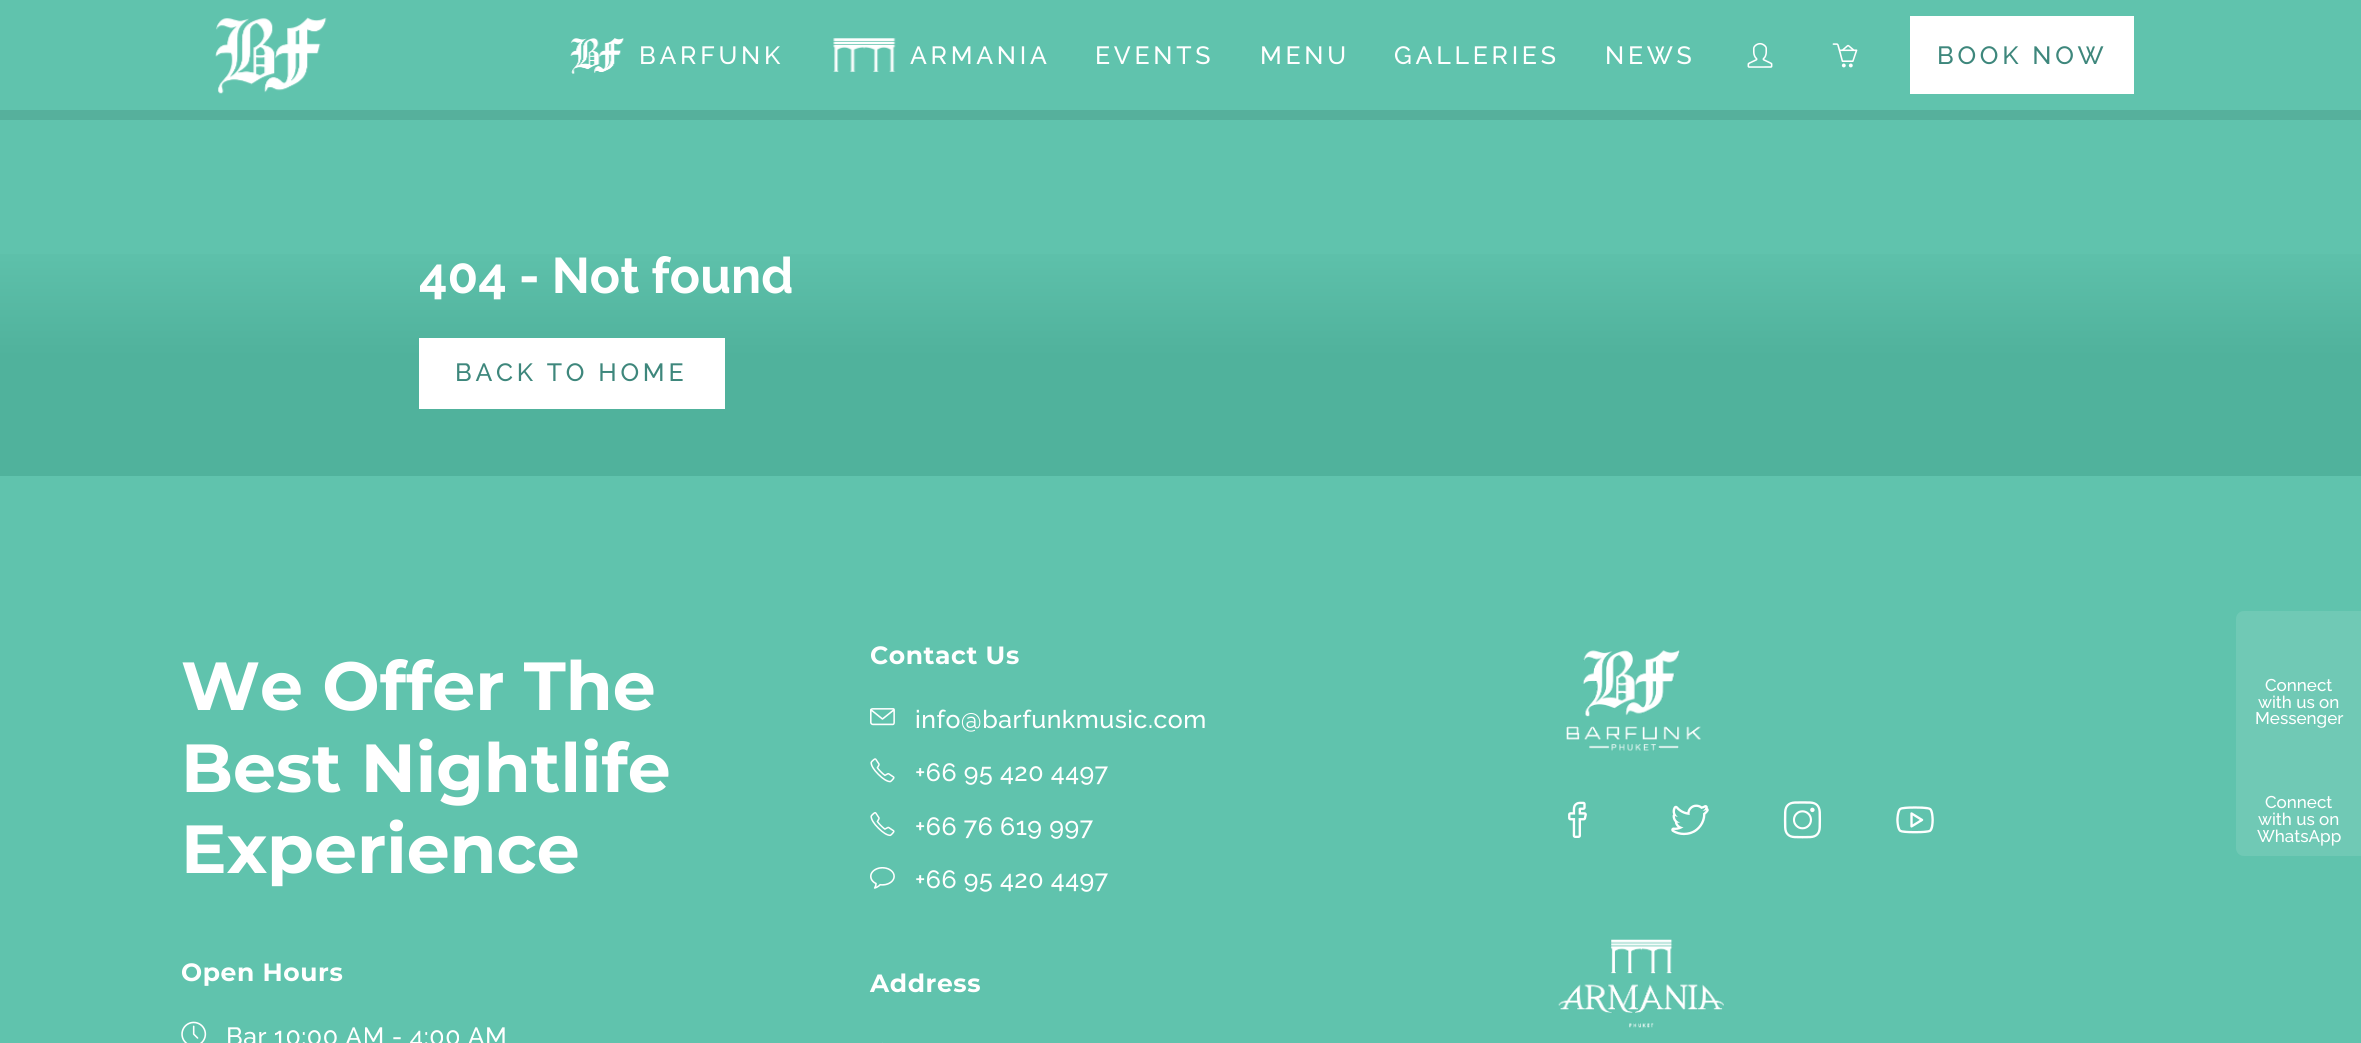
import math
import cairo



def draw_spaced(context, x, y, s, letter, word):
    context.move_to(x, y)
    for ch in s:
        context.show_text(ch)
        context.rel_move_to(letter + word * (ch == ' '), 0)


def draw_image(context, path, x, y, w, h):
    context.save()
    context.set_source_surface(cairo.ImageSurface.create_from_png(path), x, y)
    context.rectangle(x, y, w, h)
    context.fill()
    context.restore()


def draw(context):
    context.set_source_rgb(96 / 255, 195 / 255, 173 / 255)
    context.paint()
    context.set_source_rgb(86 / 255, 176 / 255, 156 / 255)
    context.rectangle(0, 110, 2361, 10)
    context.fill()
    draw_image(context, "images/1.png", 215, 17, 112, 77)
    draw_image(context, "images/2.png", 570, 38, 54, 36)
    draw_image(context, "images/3.png", 833, 38, 63, 34)
    draw_image(context, "images/4.png", 1747, 42, 26, 26)
    draw_image(context, "images/5.png", 1832, 43, 26, 25)
    context.set_source_rgb(1, 1, 1)
    context.rectangle(1910, 16, 224, 78)
    context.fill()
    gradient = cairo.LinearGradient(1181, 476, 1181, -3.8)
    gradient.add_color_stop_rgba(0.25, 80 / 255, 178 / 255, 156 / 255, 1)
    gradient.add_color_stop_rgba(0.5, 96 / 255, 195 / 255, 173 / 255, 1)
    context.set_source(gradient)
    context.rectangle(0, 254, 2361, 222)
    context.fill()
    context.set_source_rgb(1, 1, 1)
    context.rectangle(419, 338, 306, 71)
    context.fill()
    draw_image(context, "images/6.png", 181, 1021, 26, 22)
    draw_image(context, "images/7.png", 870, 708, 25, 18)
    draw_image(context, "images/8.png", 870, 758, 25, 25)
    draw_image(context, "images/9.png", 870, 812, 25, 25)
    draw_image(context, "images/10.png", 870, 867, 25, 22)
    context.set_source_rgb(106 / 255, 199 / 255, 178 / 255)
    context.rectangle(882, 1042, 1, 1)
    context.fill()
    draw_image(context, "images/11.png", 1566, 650, 135, 101)
    draw_image(context, "images/12.png", 1568, 801, 19, 37)
    draw_image(context, "images/13.png", 1671, 804, 38, 32)
    draw_image(context, "images/14.png", 1783, 801, 39, 38)
    draw_image(context, "images/15.png", 1896, 806, 38, 28)
    context.set_source_rgb(112 / 255, 201 / 255, 181 / 255)
    context.new_path()
    context.move_to(2244, 611)
    context.line_to(2361, 611)
    context.line_to(2361, 856)
    context.line_to(2244, 856)
    context.curve_to(2239.5, 856, 2236, 852.5, 2236, 848)
    context.line_to(2236, 619)
    context.curve_to(2236, 614.5, 2239.5, 611, 2244, 611)
    context.close_path()
    context.fill()
    draw_image(context, "images/16.png", 1558, 939, 166, 89)
    context.select_font_face("Raleway Medium")
    context.set_font_size(24.9)
    context.set_source_rgb(1, 1, 1)
    draw_spaced(context, 639, 64, "BARFUNK", 3.75, 0)
    draw_spaced(context, 910, 64, "ARMANIA", 3.75, 0)
    draw_spaced(context, 1095, 64, "EVENTS", 3.75, 0)
    draw_spaced(context, 1260, 64, "MENU", 3.75, 0)
    draw_spaced(context, 1394, 64, "GALLERIES", 3.75, 0)
    draw_spaced(context, 1605, 64, "NEWS", 3.75, 0)
    context.set_source_rgb(62 / 255, 135 / 255, 124 / 255)
    draw_spaced(context, 1937, 64, "BOOK NOW", 3.75, 0)
    context.select_font_face("Raleway", cairo.FontSlant.NORMAL, cairo.FontWeight.BOLD)
    context.set_font_size(50)
    context.set_source_rgb(1, 1, 1)
    context.move_to(419, 293)
    context.show_text("404 - Not found")
    context.select_font_face("Raleway Medium")
    context.set_font_size(24.9)
    context.set_source_rgb(62 / 255, 135 / 255, 124 / 255)
    draw_spaced(context, 455, 381, "BACK TO HOME", 3.75, 0)
    context.select_font_face("Montserrat", cairo.FontSlant.NORMAL, cairo.FontWeight.BOLD)
    context.set_font_size(68)
    context.set_source_rgb(1, 1, 1)
    context.move_to(181, 710)
    context.show_text("We Offer The")
    context.move_to(181, 792)
    context.show_text("Best Nightlife")
    context.move_to(181, 873)
    context.show_text("Experience")
    context.set_font_size(25)
    draw_spaced(context, 181, 981, "Open Hours", 0.6, 0)
    context.select_font_face("Raleway Medium")
    context.set_font_size(24.9)
    draw_spaced(context, 226, 1045, "Bar 10:00 AM - 4:00 AM", 0.5, 0)
    context.select_font_face("Montserrat", cairo.FontSlant.NORMAL, cairo.FontWeight.BOLD)
    context.set_font_size(25)
    draw_spaced(context, 870, 664, "Contact Us", 0.6, 0)
    context.select_font_face("Raleway Medium")
    context.set_font_size(24.9)
    draw_spaced(context, 915, 728, "info@barfunkmusic.com", 0.5, 0)
    draw_spaced(context, 915, 781, "+66 95 420 4497", 0.5, 0)
    draw_spaced(context, 915, 835, "+66 76 619 997", 0.5, 0)
    draw_spaced(context, 915, 888, "+66 95 420 4497", 0.5, 0)
    context.select_font_face("Montserrat", cairo.FontSlant.NORMAL, cairo.FontWeight.BOLD)
    context.set_font_size(25)
    draw_spaced(context, 870, 992, "Address", 0.6, 0)
    context.select_font_face("Raleway Medium")
    context.set_font_size(17)
    context.move_to(2265, 691)
    context.show_text("Connect")
    context.move_to(2258, 708)
    context.show_text("with us on")
    context.move_to(2255, 724)
    context.show_text("Messenger")
    context.move_to(2265, 808)
    context.show_text("Connect")
    context.move_to(2258, 825)
    context.show_text("with us on")
    context.move_to(2257, 842)
    context.show_text("WhatsApp")


surface = cairo.ImageSurface(cairo.Format.RGB24, 2361, 1043)
context = cairo.Context(surface)
options = cairo.FontOptions()
options.set_hint_metrics(cairo.HintMetrics.OFF)
options.set_hint_style(cairo.HintStyle.NONE)
context.set_font_options(options)
context.set_miter_limit(4)
draw(context)
surface.write_to_png("out.png")
